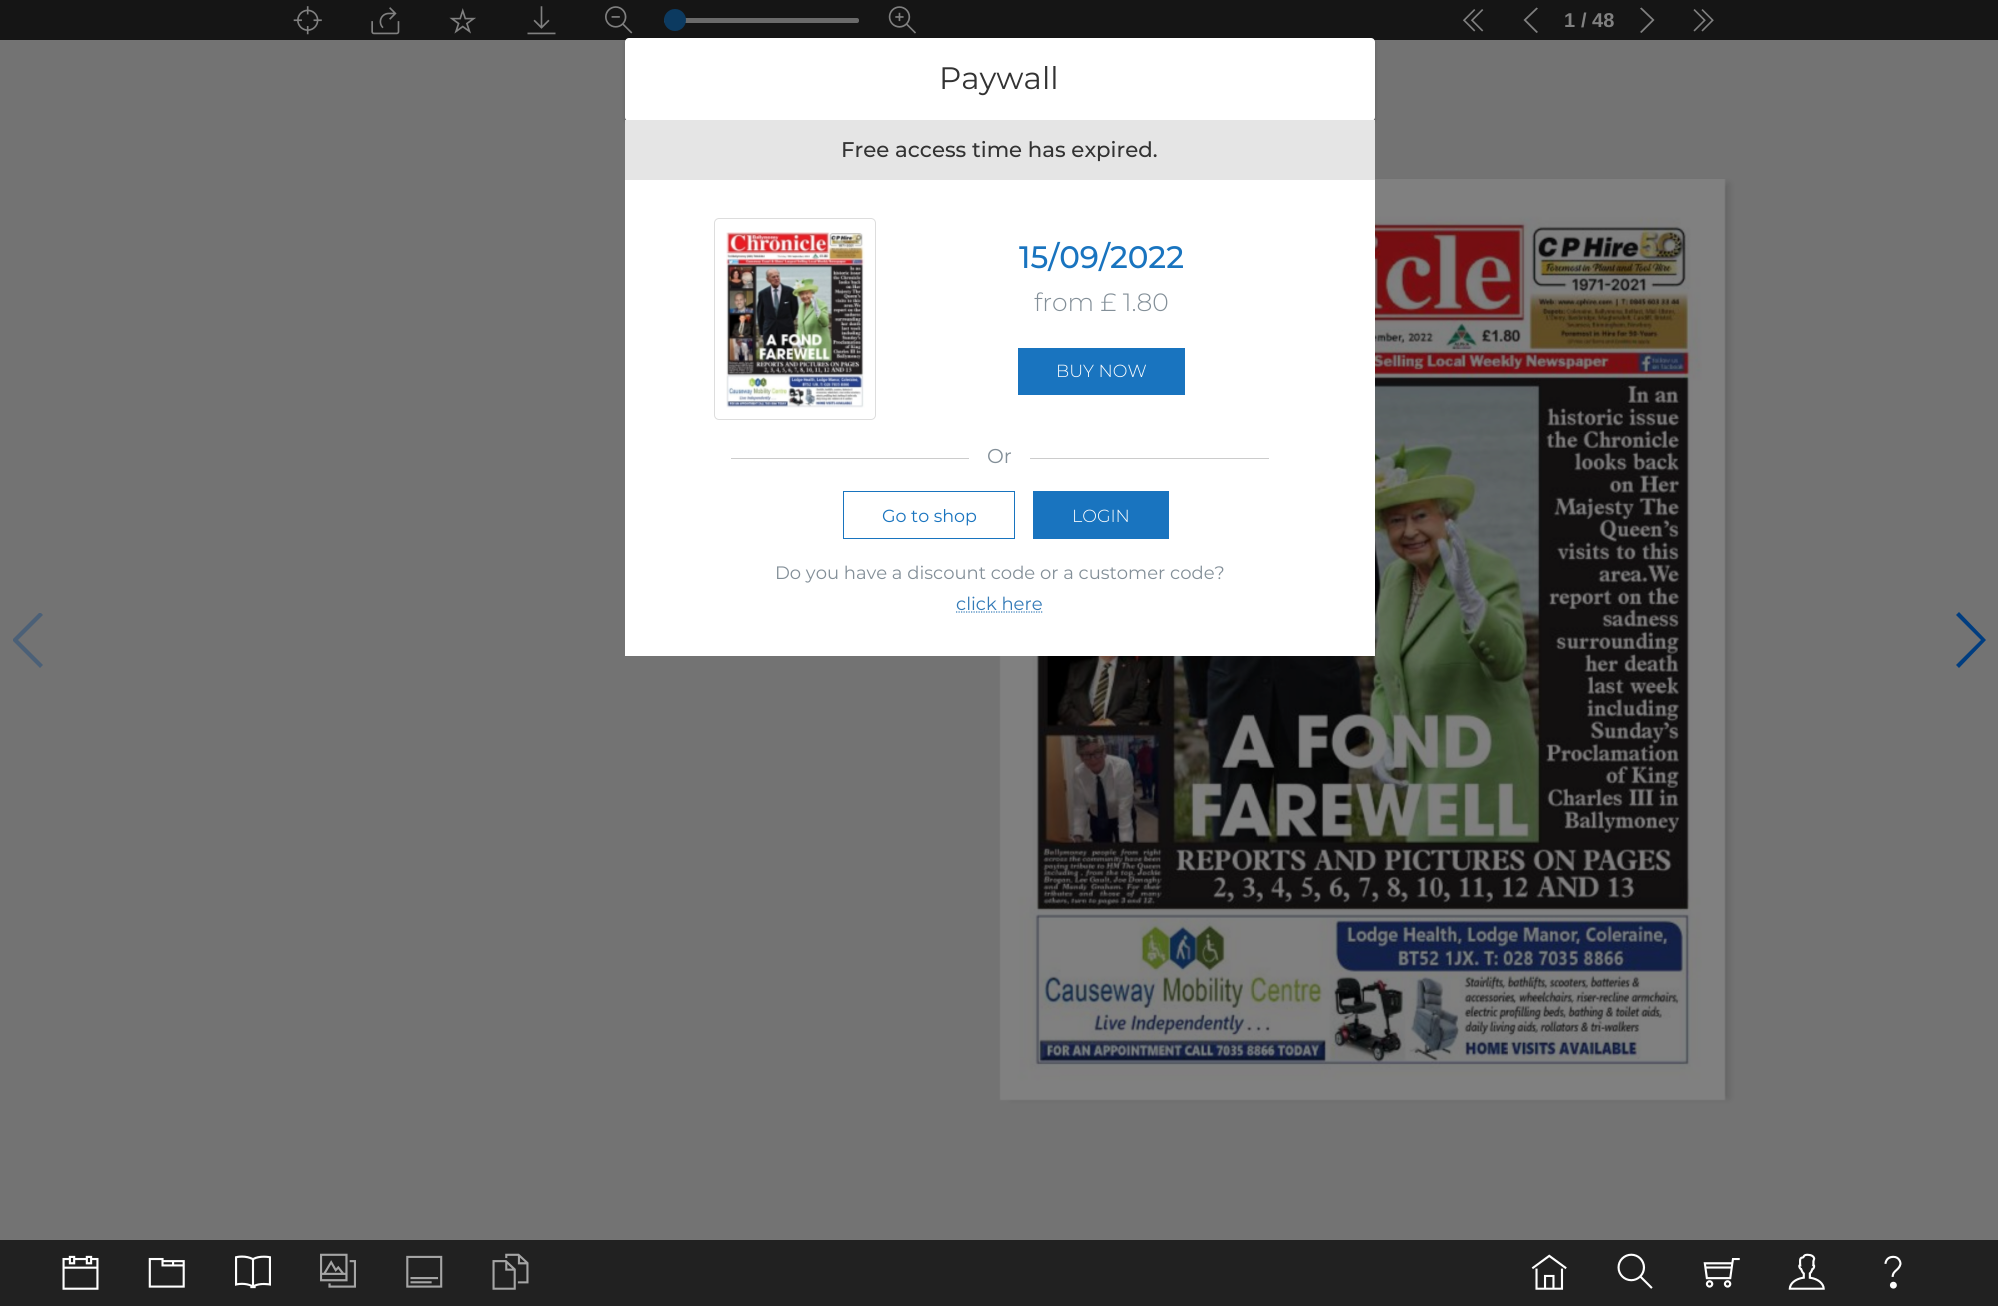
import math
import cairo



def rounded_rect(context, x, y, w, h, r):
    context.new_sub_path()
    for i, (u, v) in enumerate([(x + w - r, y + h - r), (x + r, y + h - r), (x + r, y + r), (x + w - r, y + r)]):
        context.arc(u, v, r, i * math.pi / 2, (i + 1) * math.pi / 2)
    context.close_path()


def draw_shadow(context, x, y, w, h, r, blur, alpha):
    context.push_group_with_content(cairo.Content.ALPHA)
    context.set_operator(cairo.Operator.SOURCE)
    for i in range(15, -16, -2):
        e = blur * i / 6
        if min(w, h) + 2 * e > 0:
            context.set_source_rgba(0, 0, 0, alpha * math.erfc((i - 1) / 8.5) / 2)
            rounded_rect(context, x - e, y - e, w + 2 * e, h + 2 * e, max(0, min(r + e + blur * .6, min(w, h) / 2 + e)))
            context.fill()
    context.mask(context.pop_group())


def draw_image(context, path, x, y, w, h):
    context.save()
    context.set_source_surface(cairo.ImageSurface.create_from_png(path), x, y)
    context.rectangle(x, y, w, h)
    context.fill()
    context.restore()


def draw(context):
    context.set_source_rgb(115 / 255, 115 / 255, 115 / 255)
    context.paint()
    context.set_source_rgb(21 / 255, 21 / 255, 21 / 255)
    context.rectangle(0, 0, 1998, 40)
    context.fill()
    draw_image(context, "images/1.png", 293, 6, 29, 29)
    draw_image(context, "images/2.png", 371, 7, 29, 28)
    draw_image(context, "images/3.png", 449, 8, 27, 26)
    draw_image(context, "images/4.png", 527, 6, 29, 29)
    draw_image(context, "images/5.png", 605, 6, 28, 28)
    context.set_source_rgb(106 / 255, 106 / 255, 106 / 255)
    rounded_rect(context, 664, 18, 195, 5, 2)
    context.fill()
    context.set_source_rgb(12 / 255, 58 / 255, 96 / 255)
    context.arc(675, 20, 11, 0, 2 * math.pi)
    context.fill()
    draw_image(context, "images/6.png", 888, 6, 28, 28)
    draw_image(context, "images/7.png", 1462, 9, 22, 23)
    context.set_source_rgb(128 / 255, 128 / 255, 128 / 255)
    context.new_path()
    context.move_to(1526, 20)
    context.line_to(1538, 32)
    context.line_to(1536.5, 33)
    context.line_to(1523.5, 20)
    context.line_to(1536.5, 7.5)
    context.line_to(1538, 8.5)
    context.close_path()
    context.fill()
    context.new_path()
    context.move_to(1654.5, 20)
    context.line_to(1641.5, 33)
    context.line_to(1640, 32)
    context.line_to(1652, 20)
    context.line_to(1640, 8.5)
    context.line_to(1641.5, 7.5)
    context.close_path()
    context.fill()
    draw_image(context, "images/8.png", 1693, 9, 21, 23)
    context.set_source_rgb(0, 0, 0)
    draw_shadow(context, 625, 39, 750, 84, 4, 2, 0.15)
    context.set_source_rgb(1, 1, 1)
    rounded_rect(context, 625, 38, 750, 83, 4)
    context.fill()
    context.set_source_rgb(0, 0, 0)
    draw_shadow(context, 1011, 184, 718, 914, 0, 4, 0.14)
    draw_image(context, "images/10.png", 999, 179, 727, 922)
    context.set_source_rgb(229 / 255, 229 / 255, 229 / 255)
    context.rectangle(625, 120, 750, 60)
    context.fill()
    context.set_source_rgb(1, 1, 1)
    context.rectangle(625, 180, 750, 476)
    context.fill()
    rounded_rect(context, 714.5, 218.5, 161, 201, 4.5)
    context.set_source_rgb(221 / 255, 221 / 255, 221 / 255)
    context.set_line_width(1)
    context.stroke()
    draw_image(context, "images/9.png", 726, 232, 139, 176)
    context.set_source_rgb(25 / 255, 116 / 255, 191 / 255)
    context.rectangle(1018, 348, 167, 47)
    context.fill()
    context.set_source_rgb(204 / 255, 204 / 255, 204 / 255)
    context.rectangle(731, 458, 538, 1)
    context.fill()
    context.set_source_rgb(1, 1, 1)
    context.rectangle(969, 458, 61, 1)
    context.fill()
    context.rectangle(843.5, 491.5, 171, 47)
    context.set_source_rgb(24 / 255, 116 / 255, 191 / 255)
    context.stroke()
    context.set_source_rgb(25 / 255, 116 / 255, 191 / 255)
    context.rectangle(1033, 491, 136, 48)
    context.fill()
    context.new_path()
    context.move_to(956, 612)
    context.line_to(1042.5, 612)
    context.set_source_rgb(51 / 255, 122 / 255, 183 / 255)
    context.set_line_width(1.2)
    context.set_dash([1.25, 1.25])
    context.stroke()
    context.save()
    context.rectangle(13, 613, 33, 55)
    context.clip()
    context.set_source_rgb(75 / 255, 96 / 255, 119 / 255)
    context.new_path()
    context.move_to(12, 640)
    context.line_to(40, 612)
    context.line_to(43, 615)
    context.line_to(18, 640)
    context.line_to(43, 665)
    context.line_to(40, 668)
    context.close_path()
    context.fill()
    context.restore()
    context.set_source_rgb(0, 61 / 255, 128 / 255)
    context.new_path()
    context.move_to(1986, 640)
    context.line_to(1959, 668)
    context.line_to(1956, 665)
    context.line_to(1981, 640)
    context.line_to(1956, 615)
    context.line_to(1959, 612)
    context.close_path()
    context.fill()
    context.set_source_rgb(33 / 255, 33 / 255, 33 / 255)
    context.rectangle(0, 1240, 1998, 66)
    context.fill()
    draw_image(context, "images/11.png", 62, 1255, 37, 35)
    draw_image(context, "images/12.png", 148, 1257, 37, 31)
    draw_image(context, "images/13.png", 235, 1255, 36, 34)
    draw_image(context, "images/14.png", 320, 1253, 36, 35)
    draw_image(context, "images/15.png", 406, 1255, 37, 33)
    draw_image(context, "images/16.png", 492, 1253, 37, 37)
    draw_image(context, "images/17.png", 1531, 1254, 36, 36)
    draw_image(context, "images/18.png", 1617, 1253, 36, 36)
    draw_image(context, "images/19.png", 1703, 1258, 37, 30)
    draw_image(context, "images/20.png", 1788, 1253, 37, 37)
    draw_image(context, "images/21.png", 1884, 1255, 18, 34)
    context.select_font_face("Liberation Sans", cairo.FontSlant.NORMAL, cairo.FontWeight.BOLD)
    context.set_font_size(20)
    context.set_source_rgb(128 / 255, 128 / 255, 128 / 255)
    context.move_to(1564, 27)
    context.show_text("1")
    context.move_to(1581, 27)
    context.show_text("/ 48")
    context.select_font_face("Montserrat")
    context.set_font_size(31)
    context.set_source_rgb(51 / 255, 51 / 255, 51 / 255)
    context.move_to(939, 89)
    context.show_text("Paywall")
    context.select_font_face("Montserrat Medium")
    context.set_font_size(21.25)
    context.move_to(841, 157)
    context.show_text("Free access time has expired.")
    context.set_font_size(31)
    context.set_source_rgb(25 / 255, 116 / 255, 191 / 255)
    context.move_to(1019, 268)
    context.show_text("15/09/2022")
    context.select_font_face("Montserrat Light")
    context.set_font_size(25)
    context.set_source_rgb(131 / 255, 143 / 255, 152 / 255)
    context.move_to(1034, 311)
    context.show_text("from £ 1.80")
    context.set_font_size(17.5)
    context.set_source_rgb(1, 1, 1)
    context.move_to(1056, 377)
    context.show_text("BUY NOW")
    context.select_font_face("Montserrat")
    context.set_font_size(20)
    context.set_source_rgb(131 / 255, 143 / 255, 152 / 255)
    context.move_to(987, 463)
    context.show_text("Or")
    context.set_font_size(17.5)
    context.set_source_rgb(25 / 255, 116 / 255, 191 / 255)
    context.move_to(882, 522)
    context.show_text("Go to shop")
    context.select_font_face("Montserrat Light")
    context.set_source_rgb(1, 1, 1)
    context.move_to(1072, 522)
    context.show_text("LOGIN")
    context.select_font_face("Montserrat")
    context.set_font_size(18)
    context.set_source_rgb(131 / 255, 143 / 255, 152 / 255)
    context.move_to(775, 579)
    context.show_text("Do you have a discount code or a customer code?")
    context.set_source_rgb(51 / 255, 122 / 255, 183 / 255)
    context.move_to(956, 610)
    context.show_text("click here")


surface = cairo.ImageSurface(cairo.Format.RGB24, 1998, 1306)
context = cairo.Context(surface)
options = cairo.FontOptions()
options.set_hint_metrics(cairo.HintMetrics.OFF)
options.set_hint_style(cairo.HintStyle.NONE)
context.set_font_options(options)
context.set_miter_limit(4)
draw(context)
surface.write_to_png("out.png")
